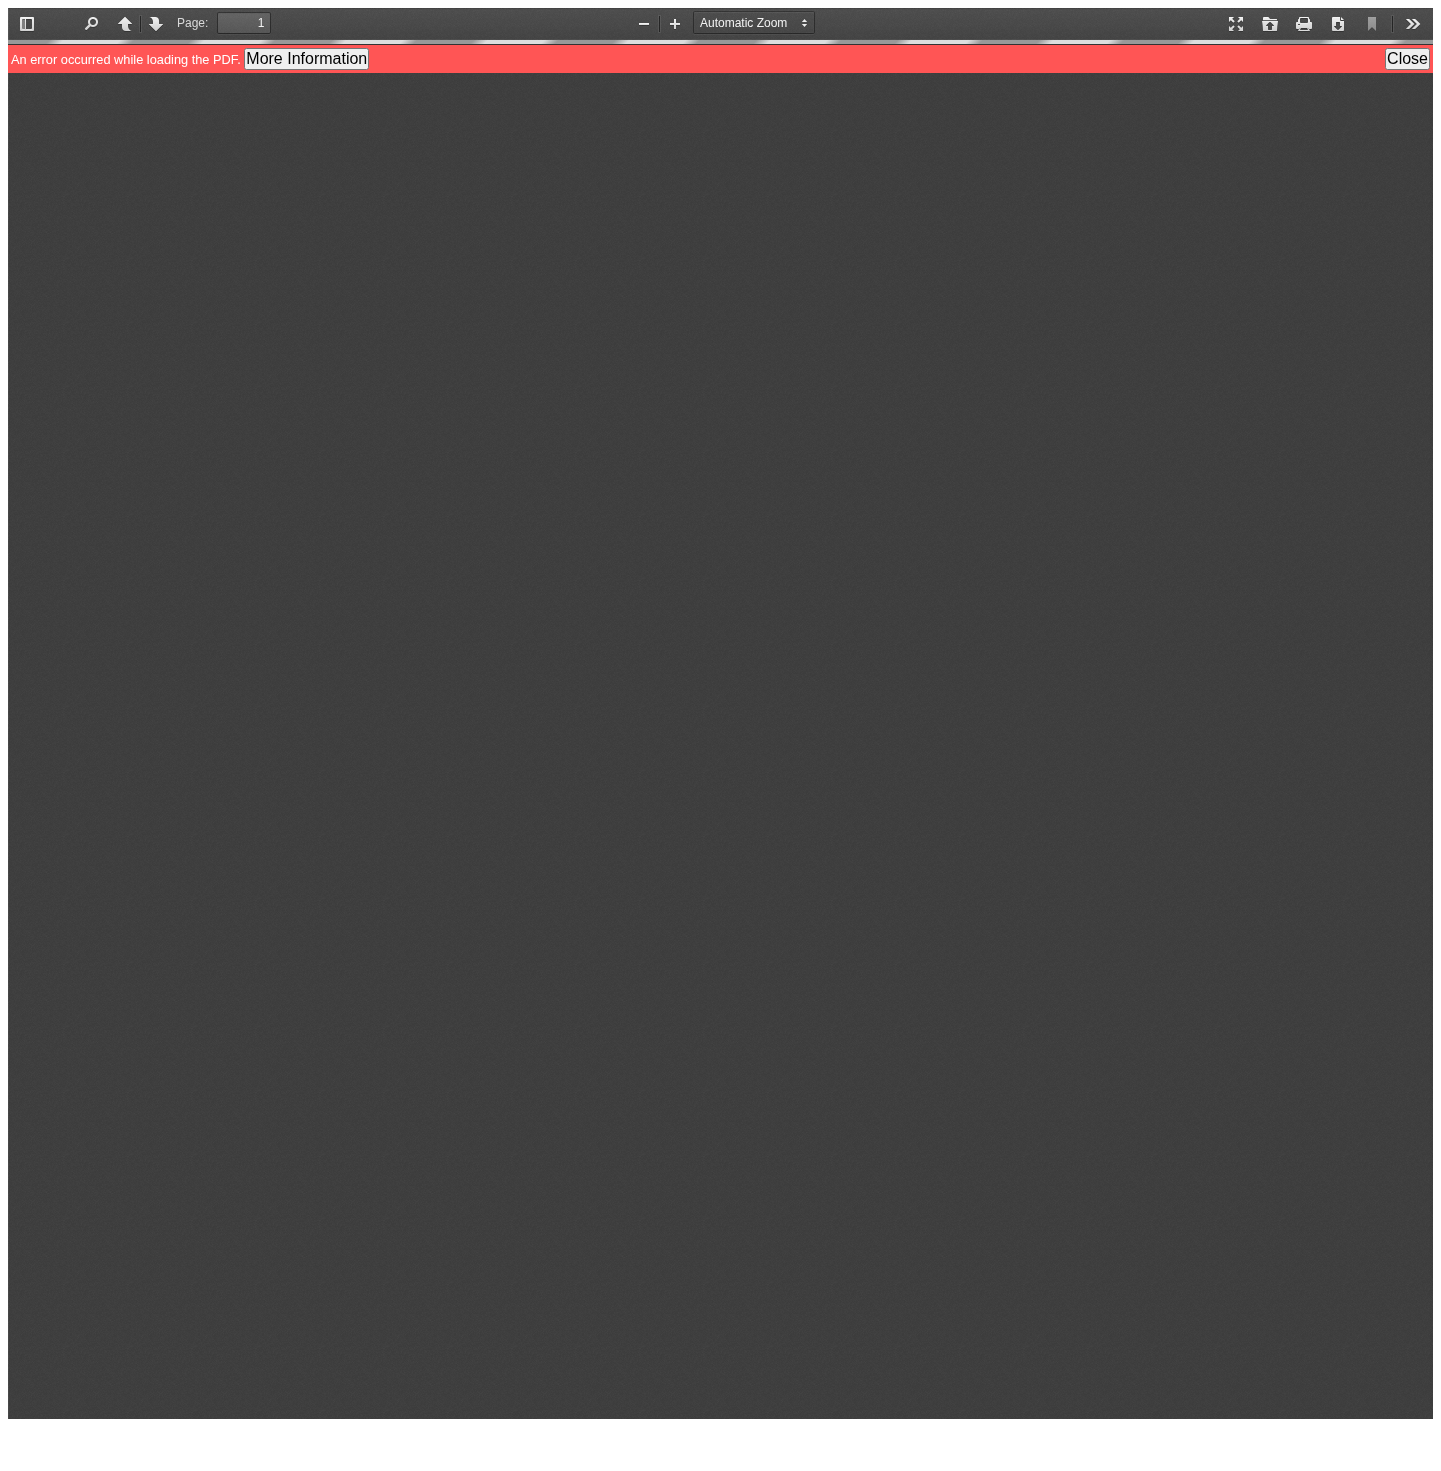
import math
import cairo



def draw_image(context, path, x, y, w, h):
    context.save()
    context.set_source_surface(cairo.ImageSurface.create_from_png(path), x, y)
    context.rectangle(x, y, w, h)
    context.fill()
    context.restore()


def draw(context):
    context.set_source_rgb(1, 1, 1)
    context.paint()
    draw_image(context, "images/1.png", 8, 8, 1425, 1411)


surface = cairo.ImageSurface(cairo.Format.RGB24, 1441, 1471)
context = cairo.Context(surface)
options = cairo.FontOptions()
options.set_hint_metrics(cairo.HintMetrics.OFF)
options.set_hint_style(cairo.HintStyle.NONE)
context.set_font_options(options)
context.set_miter_limit(4)
draw(context)
surface.write_to_png("out.png")
